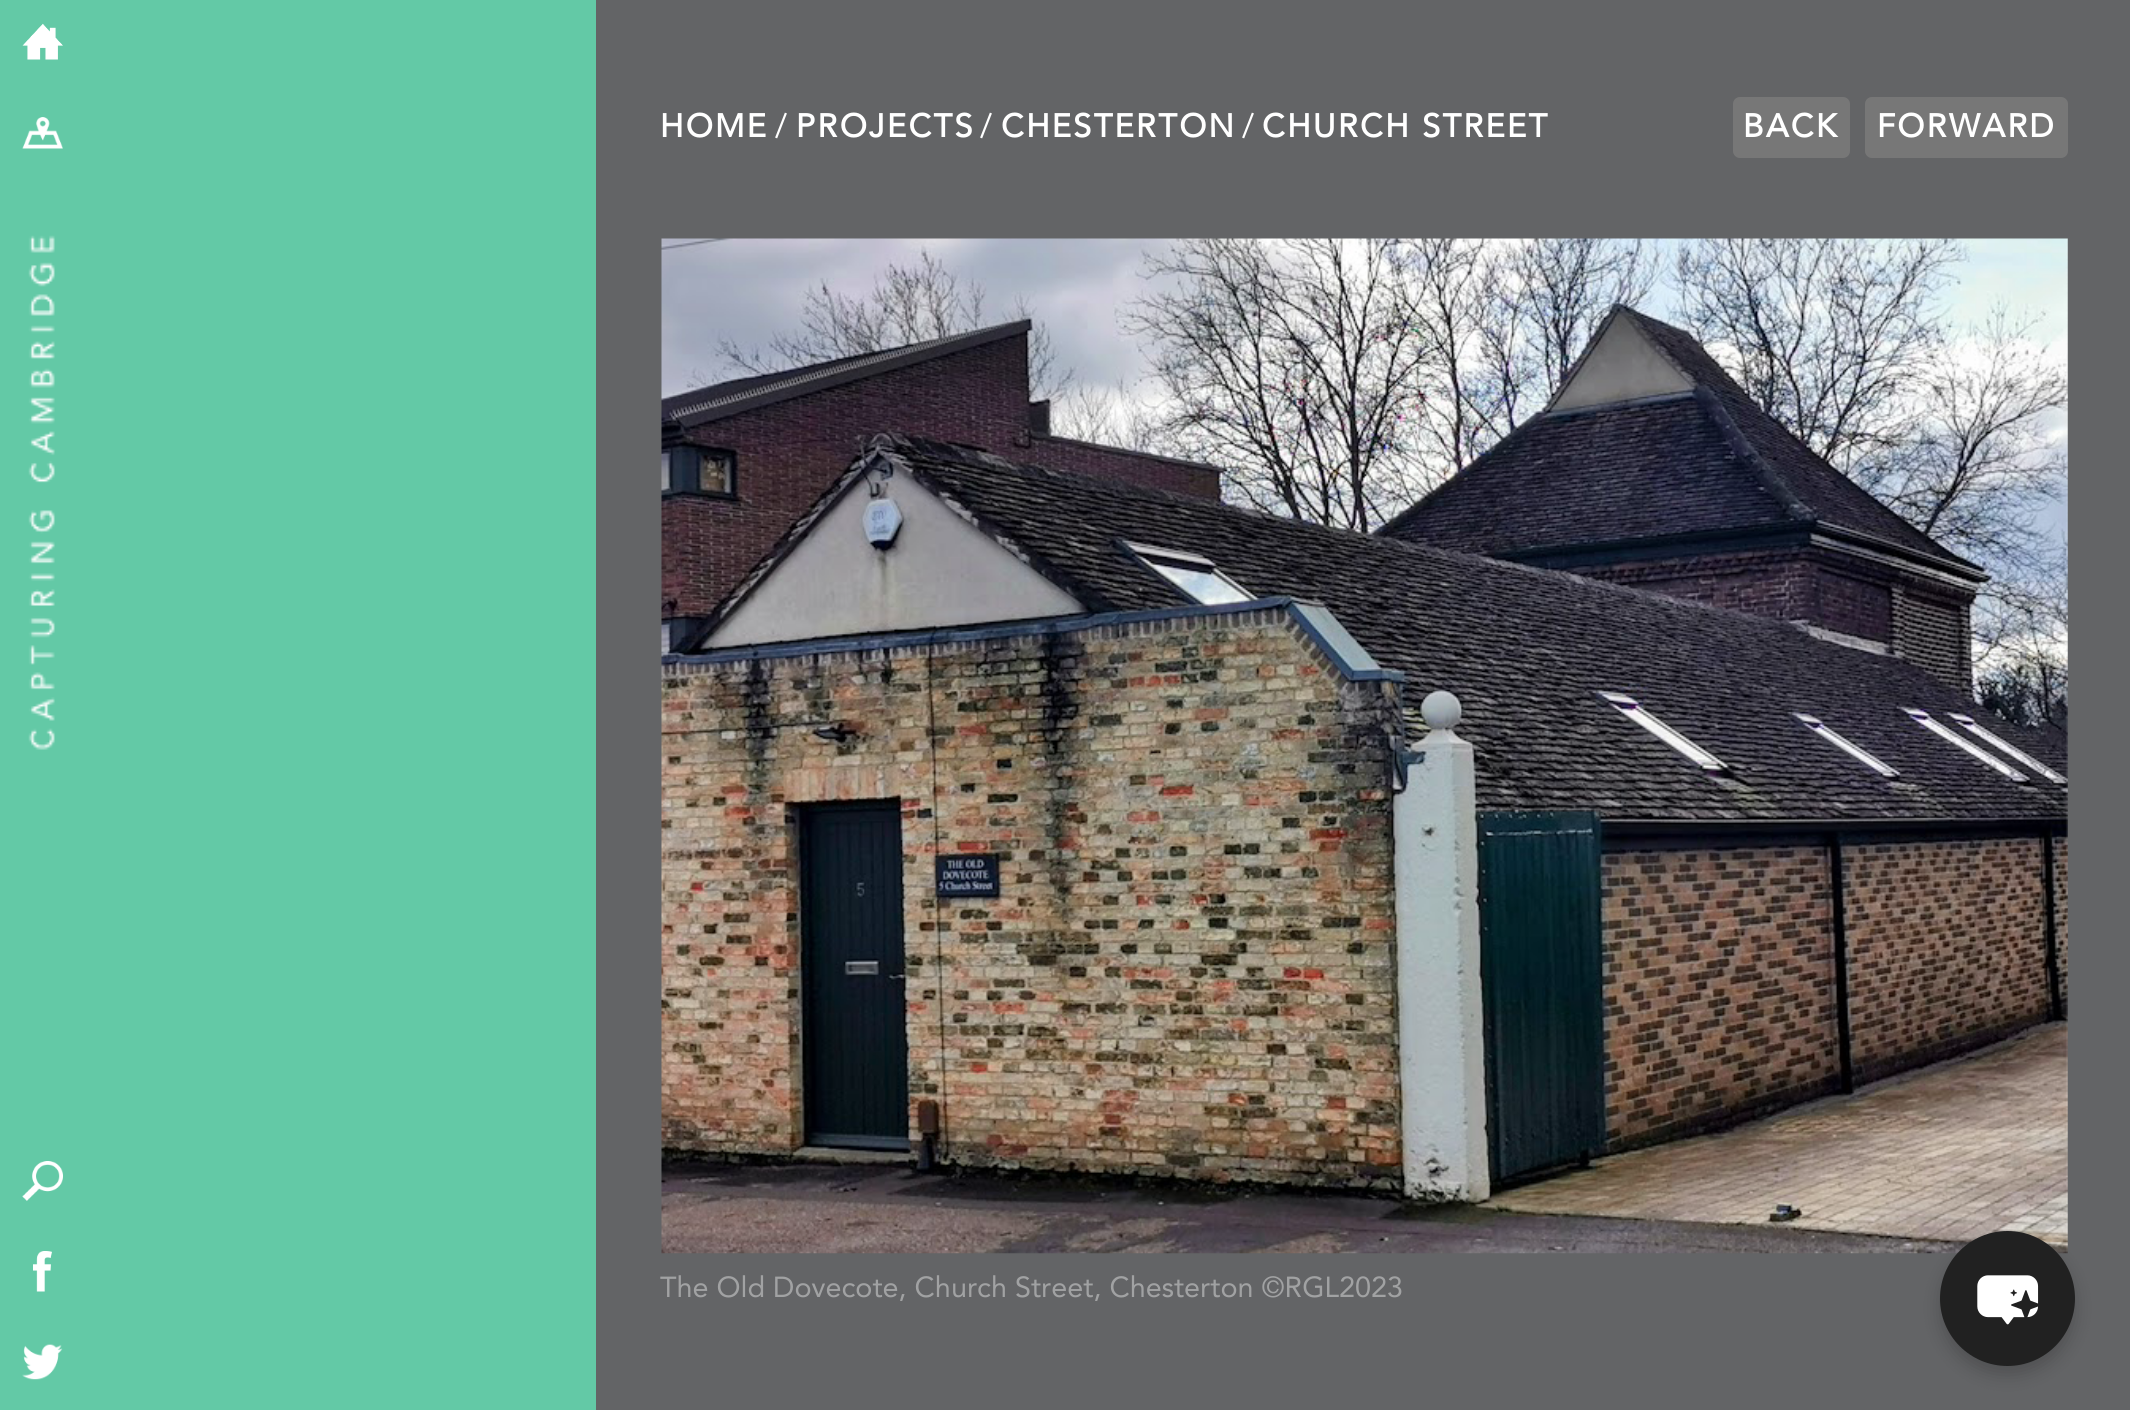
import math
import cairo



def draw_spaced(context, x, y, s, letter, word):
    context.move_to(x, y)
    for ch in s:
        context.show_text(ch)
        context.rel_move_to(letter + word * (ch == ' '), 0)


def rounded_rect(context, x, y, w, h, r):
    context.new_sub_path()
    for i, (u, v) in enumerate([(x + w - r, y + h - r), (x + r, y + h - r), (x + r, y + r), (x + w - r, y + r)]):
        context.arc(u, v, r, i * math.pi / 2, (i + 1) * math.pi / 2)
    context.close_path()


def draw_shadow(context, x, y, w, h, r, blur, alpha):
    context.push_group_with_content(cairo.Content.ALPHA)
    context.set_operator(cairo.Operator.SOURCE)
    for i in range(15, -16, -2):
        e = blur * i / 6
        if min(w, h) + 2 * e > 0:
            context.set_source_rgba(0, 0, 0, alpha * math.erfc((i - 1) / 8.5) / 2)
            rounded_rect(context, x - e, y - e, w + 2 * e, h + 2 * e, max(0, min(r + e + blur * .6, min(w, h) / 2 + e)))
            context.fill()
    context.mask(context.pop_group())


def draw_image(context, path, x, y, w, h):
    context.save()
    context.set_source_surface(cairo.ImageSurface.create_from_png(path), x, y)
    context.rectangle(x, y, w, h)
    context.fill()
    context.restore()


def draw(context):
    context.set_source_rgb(99 / 255, 201 / 255, 166 / 255)
    context.paint()
    draw_image(context, "images/1.png", 22, 23, 41, 37)
    draw_image(context, "images/2.png", 22, 117, 41, 32)
    draw_image(context, "images/3.png", 28, 235, 27, 515)
    draw_image(context, "images/4.png", 22, 1161, 41, 40)
    draw_image(context, "images/5.png", 33, 1251, 19, 41)
    draw_image(context, "images/6.png", 22, 1344, 41, 36)
    context.set_source_rgb(99 / 255, 100 / 255, 102 / 255)
    context.rectangle(596, 0, 1534, 1410)
    context.fill()
    context.set_source_rgb(119 / 255, 119 / 255, 119 / 255)
    rounded_rect(context, 1733, 97, 117, 61, 7)
    context.fill()
    rounded_rect(context, 1865, 97, 203, 61, 7)
    context.fill()
    draw_image(context, "images/7.png", 661, 238, 1407, 1016)
    context.set_source_rgb(0, 0, 0)
    draw_shadow(context, 1940, 1240, 135, 135, 67.5, 9, 0.2)
    context.set_source_rgb(33 / 255, 33 / 255, 33 / 255)
    context.arc(2007.5, 1298.5, 67.5, 0, 2 * math.pi)
    context.fill()
    draw_image(context, "images/8.png", 1977, 1275, 62, 50)
    context.select_font_face("Avenir", cairo.FontSlant.NORMAL, cairo.FontWeight.BOLD)
    context.set_font_size(32.5)
    context.set_source_rgb(1, 1, 1)
    draw_spaced(context, 660, 137, "HOME", 2.25, 0)
    context.select_font_face("Avenir")
    draw_spaced(context, 775, 137, "/", 2.25, 0)
    context.select_font_face("Avenir", cairo.FontSlant.NORMAL, cairo.FontWeight.BOLD)
    draw_spaced(context, 796, 137, "PROJECTS", 2.25, 0)
    context.select_font_face("Avenir")
    draw_spaced(context, 980, 137, "/", 2.25, 0)
    context.select_font_face("Avenir", cairo.FontSlant.NORMAL, cairo.FontWeight.BOLD)
    draw_spaced(context, 1001, 137, "CHESTERTON", 2.25, 0)
    context.select_font_face("Avenir")
    draw_spaced(context, 1242, 137, "/", 2.25, 0)
    context.select_font_face("Avenir", cairo.FontSlant.NORMAL, cairo.FontWeight.BOLD)
    draw_spaced(context, 1262, 137, "CHURCH STREET", 2.25, 0)
    draw_spaced(context, 1743, 137, "BACK", 2.25, 0)
    draw_spaced(context, 1877, 137, "FORWARD", 2.25, 0)
    context.select_font_face("Avenir")
    context.set_font_size(28.8)
    context.set_source_rgb(161 / 255, 162 / 255, 163 / 255)
    context.move_to(660, 1297)
    context.show_text("The Old Dovecote, Church Street, Chesterton ©RGL2023")


surface = cairo.ImageSurface(cairo.Format.RGB24, 2130, 1410)
context = cairo.Context(surface)
options = cairo.FontOptions()
options.set_hint_metrics(cairo.HintMetrics.OFF)
options.set_hint_style(cairo.HintStyle.NONE)
context.set_font_options(options)
context.set_miter_limit(4)
draw(context)
surface.write_to_png("out.png")
